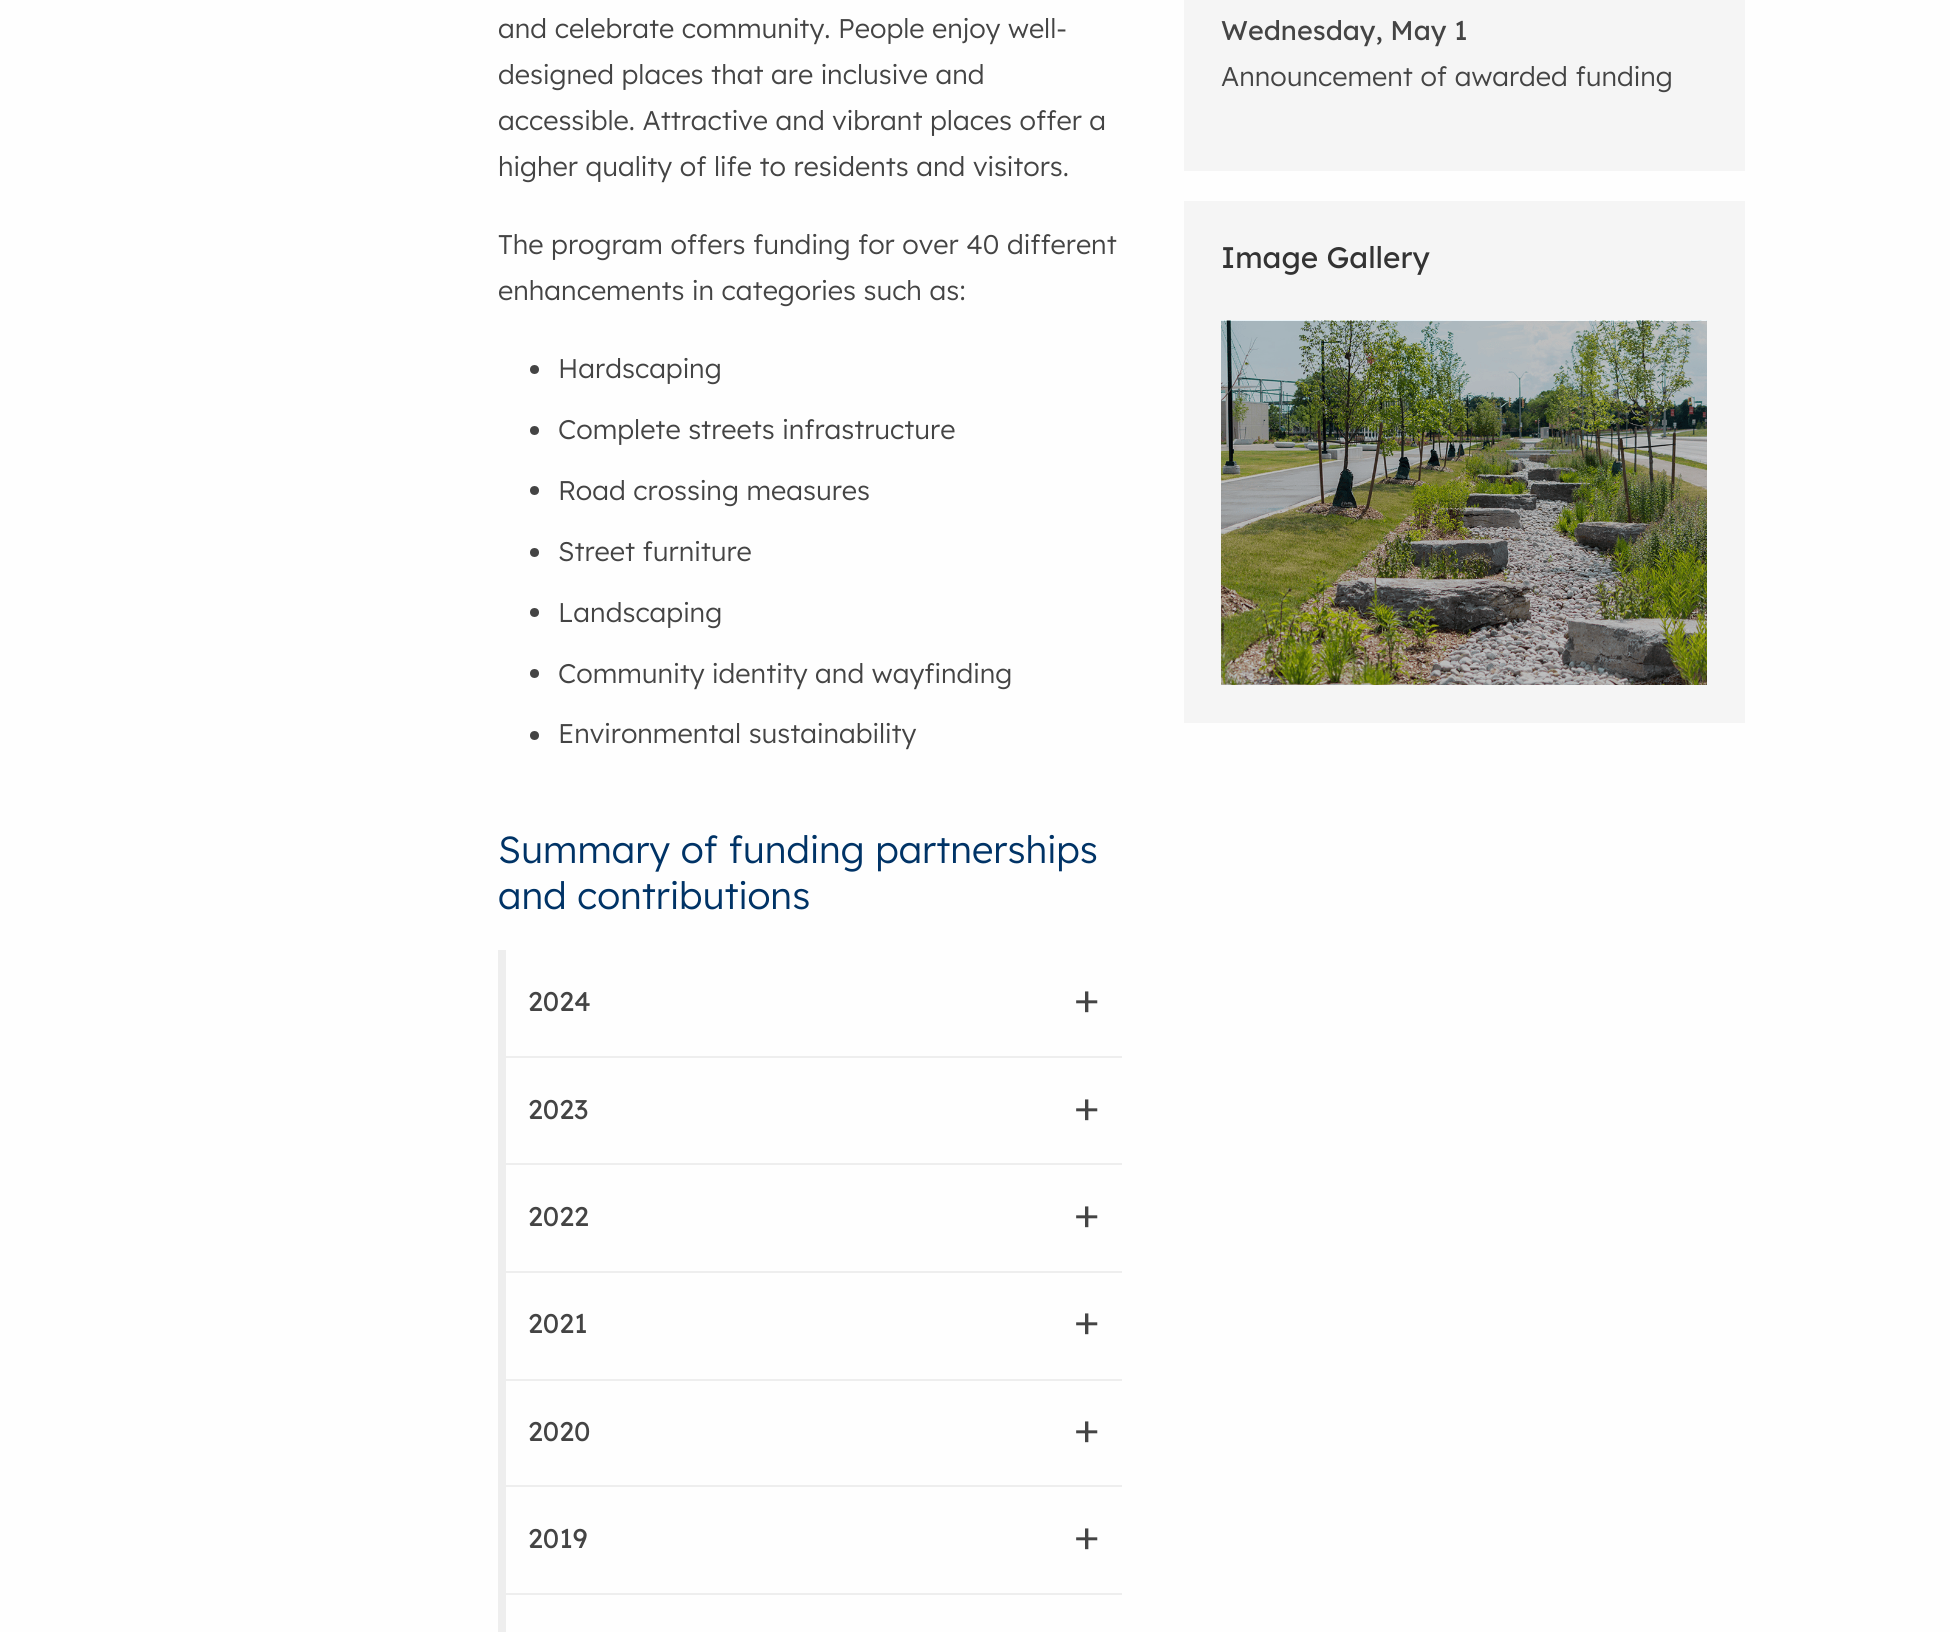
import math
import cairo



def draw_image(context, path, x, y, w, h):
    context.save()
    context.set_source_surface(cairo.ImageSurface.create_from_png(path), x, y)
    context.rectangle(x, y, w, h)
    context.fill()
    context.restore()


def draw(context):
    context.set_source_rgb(254 / 255, 254 / 255, 254 / 255)
    context.paint()
    context.set_source_rgb(68 / 255, 68 / 255, 68 / 255)
    context.arc(534.5, 369.5, 4.5, 0, 2 * math.pi)
    context.fill()
    context.arc(534.5, 430.5, 4.5, 0, 2 * math.pi)
    context.fill()
    context.arc(534.5, 490.5, 4.5, 0, 2 * math.pi)
    context.fill()
    context.arc(534.5, 552.5, 4.5, 0, 2 * math.pi)
    context.fill()
    context.arc(534.5, 612.5, 4.5, 0, 2 * math.pi)
    context.fill()
    context.arc(534.5, 673.5, 4.5, 0, 2 * math.pi)
    context.fill()
    context.arc(534.5, 735.5, 4.5, 0, 2 * math.pi)
    context.fill()
    context.set_source_rgb(238 / 255, 238 / 255, 238 / 255)
    context.rectangle(498, 1056, 624, 2)
    context.fill()
    context.rectangle(498, 950, 8, 108)
    context.fill()
    context.rectangle(498, 1163, 624, 2)
    context.fill()
    context.rectangle(498, 1058, 8, 106)
    context.fill()
    context.rectangle(498, 1271, 624, 2)
    context.fill()
    context.rectangle(498, 1164, 8, 108)
    context.fill()
    context.rectangle(498, 1379, 624, 2)
    context.fill()
    context.rectangle(498, 1272, 8, 108)
    context.fill()
    context.rectangle(498, 1485, 624, 2)
    context.fill()
    context.rectangle(498, 1380, 8, 107)
    context.fill()
    context.rectangle(498, 1593, 624, 2)
    context.fill()
    context.rectangle(498, 1487, 8, 145)
    context.fill()
    context.set_source_rgb(245 / 255, 245 / 255, 245 / 255)
    context.rectangle(1184, 0, 561, 171)
    context.fill()
    context.rectangle(1184, 201, 561, 522)
    context.fill()
    draw_image(context, "images/1.png", 1221, 320, 486, 365)
    context.select_font_face("Lexend")
    context.set_font_size(27)
    context.set_source_rgb(68 / 255, 68 / 255, 68 / 255)
    context.move_to(498, 38)
    context.show_text("and celebrate community. People enjoy well-")
    context.move_to(498, 84)
    context.show_text("designed places that are inclusive and")
    context.move_to(498, 130)
    context.show_text("accessible. Attractive and vibrant places offer a")
    context.move_to(498, 176)
    context.show_text("higher quality of life to residents and visitors.")
    context.move_to(498, 254)
    context.show_text("The program offers funding for over 40 different")
    context.move_to(498, 300)
    context.show_text("enhancements in categories such as:")
    context.move_to(558, 378)
    context.show_text("Hardscaping")
    context.move_to(558, 439)
    context.show_text("Complete streets infrastructure")
    context.move_to(558, 500)
    context.show_text("Road crossing measures")
    context.move_to(558, 561)
    context.show_text("Street furniture")
    context.move_to(558, 622)
    context.show_text("Landscaping")
    context.move_to(558, 683)
    context.show_text("Community identity and wayfinding")
    context.move_to(558, 743)
    context.show_text("Environmental sustainability")
    context.set_font_size(37.75)
    context.set_source_rgb(0, 51 / 255, 102 / 255)
    context.move_to(498, 863)
    context.show_text("Summary of funding partnerships")
    context.move_to(498, 909)
    context.show_text("and contributions")
    context.select_font_face("Lexend Medium")
    context.set_font_size(27)
    context.set_source_rgb(68 / 255, 68 / 255, 68 / 255)
    context.move_to(528, 1011)
    context.show_text("2024")
    context.select_font_face("Lexend")
    context.set_font_size(43)
    context.move_to(1074, 1014)
    context.show_text("+")
    context.select_font_face("Lexend Medium")
    context.set_font_size(27)
    context.move_to(528, 1119)
    context.show_text("2023")
    context.select_font_face("Lexend")
    context.set_font_size(43)
    context.move_to(1074, 1122)
    context.show_text("+")
    context.select_font_face("Lexend Medium")
    context.set_font_size(27)
    context.move_to(528, 1226)
    context.show_text("2022")
    context.select_font_face("Lexend")
    context.set_font_size(43)
    context.move_to(1074, 1229)
    context.show_text("+")
    context.select_font_face("Lexend Medium")
    context.set_font_size(27)
    context.move_to(528, 1333)
    context.show_text("2021")
    context.select_font_face("Lexend")
    context.set_font_size(43)
    context.move_to(1074, 1336)
    context.show_text("+")
    context.select_font_face("Lexend Medium")
    context.set_font_size(27)
    context.move_to(528, 1441)
    context.show_text("2020")
    context.select_font_face("Lexend")
    context.set_font_size(43)
    context.move_to(1074, 1444)
    context.show_text("+")
    context.select_font_face("Lexend Medium")
    context.set_font_size(27)
    context.move_to(528, 1548)
    context.show_text("2019")
    context.select_font_face("Lexend")
    context.set_font_size(43)
    context.move_to(1074, 1551)
    context.show_text("+")
    context.select_font_face("Lexend Medium")
    context.set_font_size(27)
    context.move_to(1221, 40)
    context.show_text("Wednesday, May 1")
    context.select_font_face("Lexend")
    context.move_to(1221, 86)
    context.show_text("Announcement of awarded funding")
    context.select_font_face("Lexend Medium")
    context.set_font_size(29.75)
    context.set_source_rgb(51 / 255, 51 / 255, 51 / 255)
    context.move_to(1221, 268)
    context.show_text("Image Gallery")


surface = cairo.ImageSurface(cairo.Format.RGB24, 1950, 1632)
context = cairo.Context(surface)
options = cairo.FontOptions()
options.set_hint_metrics(cairo.HintMetrics.OFF)
options.set_hint_style(cairo.HintStyle.NONE)
context.set_font_options(options)
context.set_miter_limit(4)
draw(context)
surface.write_to_png("out.png")
